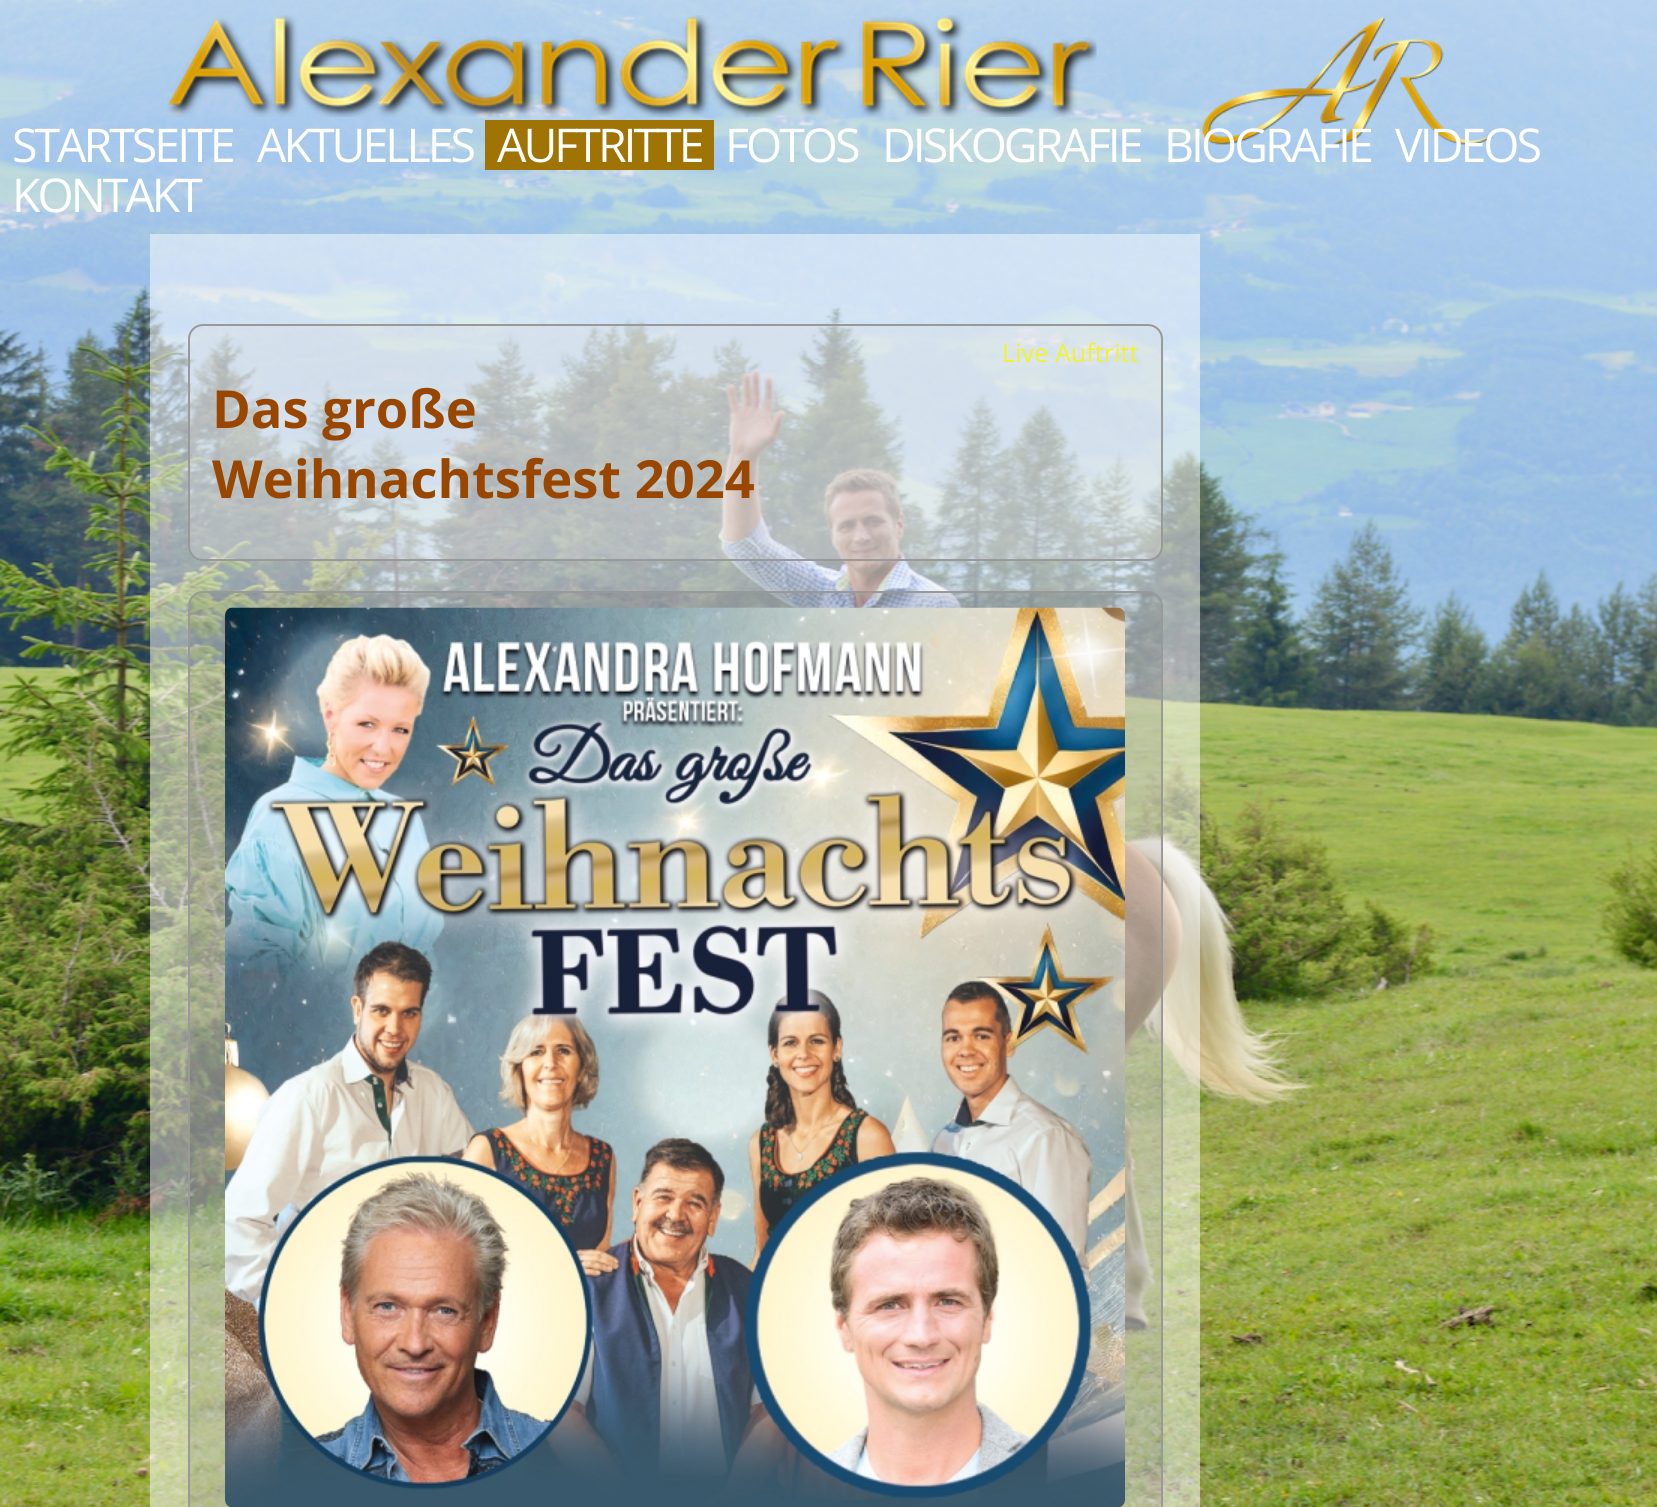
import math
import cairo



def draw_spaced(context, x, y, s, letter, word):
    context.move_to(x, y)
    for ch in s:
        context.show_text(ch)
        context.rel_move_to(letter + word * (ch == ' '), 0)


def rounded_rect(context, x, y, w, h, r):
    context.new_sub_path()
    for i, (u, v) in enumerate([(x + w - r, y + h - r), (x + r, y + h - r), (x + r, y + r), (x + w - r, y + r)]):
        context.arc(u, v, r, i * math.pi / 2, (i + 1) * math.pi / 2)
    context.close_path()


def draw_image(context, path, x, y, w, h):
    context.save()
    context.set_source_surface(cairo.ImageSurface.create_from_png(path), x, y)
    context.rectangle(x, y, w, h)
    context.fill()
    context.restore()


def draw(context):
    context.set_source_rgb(1, 1, 1)
    context.paint()
    draw_image(context, "images/1.png", 0, 0, 1657, 1507)
    draw_image(context, "images/2.png", 167, 15, 930, 102)
    draw_image(context, "images/3.png", 1202, 17, 291, 129)
    context.set_source_rgb(159 / 255, 115 / 255, 4 / 255)
    context.rectangle(485, 120, 229, 50)
    context.fill()
    context.set_source_rgba(1, 1, 1, 0.5)
    context.rectangle(150, 234, 1050, 1273)
    context.fill()
    context.set_source_rgba(221 / 255, 221 / 255, 221 / 255, 0.3)
    rounded_rect(context, 189, 325, 973, 235, 14)
    context.fill_preserve()
    context.set_source_rgb(153 / 255, 153 / 255, 153 / 255)
    context.stroke()
    context.set_source_rgba(0, 0, 0, 0.1)
    rounded_rect(context, 189, 592, 973, 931, 14)
    context.fill_preserve()
    context.set_source_rgb(153 / 255, 153 / 255, 153 / 255)
    context.stroke()
    draw_image(context, "images/4.png", 225, 607, 900, 900)
    context.select_font_face("Open Sans")
    context.set_font_size(46.5)
    context.set_source_rgb(1, 1, 1)
    draw_spaced(context, 12, 162, "STARTSEITE", -3, 0)
    draw_spaced(context, 257, 162, "AKTUELLES", -3, 0)
    draw_spaced(context, 497, 162, "AUFTRITTE", -3, 0)
    draw_spaced(context, 725, 162, "FOTOS", -3, 0)
    draw_spaced(context, 882, 162, "DISKOGRAFIE", -3, 0)
    draw_spaced(context, 1164, 162, "BIOGRAFIE", -3, 0)
    draw_spaced(context, 1395, 162, "VIDEOS", -3, 0)
    draw_spaced(context, 12, 212, "KONTAKT", -3, 0)
    context.set_font_size(25.25)
    context.set_source_rgb(242 / 255, 242 / 255, 44 / 255)
    context.move_to(1002, 362)
    context.show_text("Live Auftritt")
    context.select_font_face("Open Sans", cairo.FontSlant.NORMAL, cairo.FontWeight.BOLD)
    context.set_font_size(52.5)
    context.set_source_rgb(153 / 255, 71 / 255, 0)
    context.move_to(212, 428)
    context.show_text("Das große")
    context.move_to(212, 498)
    context.show_text("Weihnachtsfest 2024")


surface = cairo.ImageSurface(cairo.Format.RGB24, 1657, 1507)
context = cairo.Context(surface)
options = cairo.FontOptions()
options.set_hint_metrics(cairo.HintMetrics.OFF)
options.set_hint_style(cairo.HintStyle.NONE)
context.set_font_options(options)
context.set_miter_limit(4)
draw(context)
surface.write_to_png("out.png")
